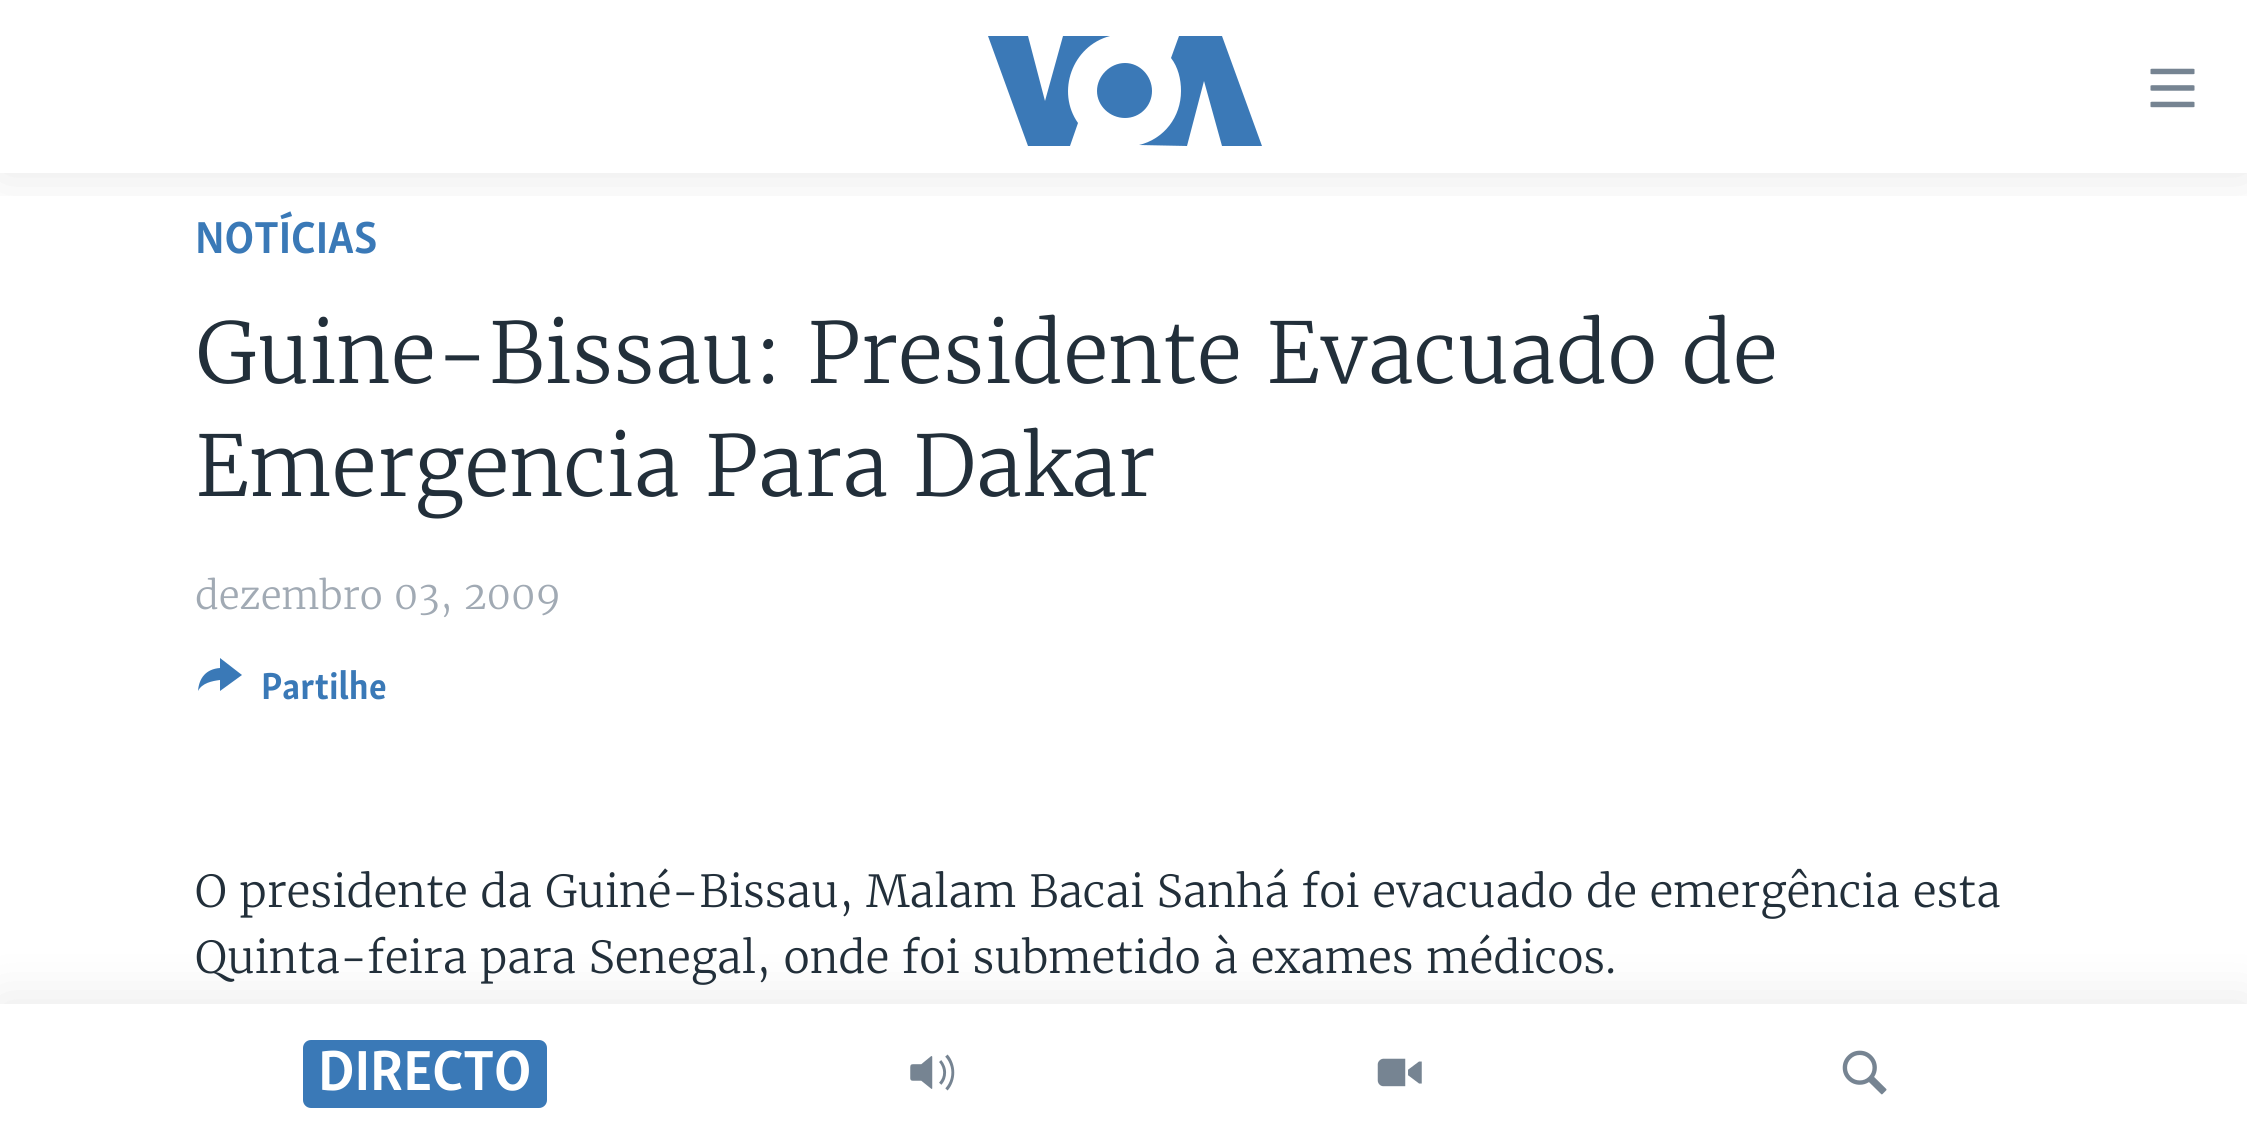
import math
import cairo



def rounded_rect(context, x, y, w, h, r):
    context.new_sub_path()
    for i, (u, v) in enumerate([(x + w - r, y + h - r), (x + r, y + h - r), (x + r, y + r), (x + w - r, y + r)]):
        context.arc(u, v, r, i * math.pi / 2, (i + 1) * math.pi / 2)
    context.close_path()


def draw_shadow(context, x, y, w, h, r, blur, alpha):
    context.push_group_with_content(cairo.Content.ALPHA)
    context.set_operator(cairo.Operator.SOURCE)
    for i in range(15, -16, -2):
        e = blur * i / 6
        if min(w, h) + 2 * e > 0:
            context.set_source_rgba(0, 0, 0, alpha * math.erfc((i - 1) / 8.5) / 2)
            rounded_rect(context, x - e, y - e, w + 2 * e, h + 2 * e, max(0, min(r + e + blur * .6, min(w, h) / 2 + e)))
            context.fill()
    context.mask(context.pop_group())


def draw_image(context, path, x, y, w, h):
    context.save()
    context.set_source_surface(cairo.ImageSurface.create_from_png(path), x, y)
    context.rectangle(x, y, w, h)
    context.fill()
    context.restore()


def draw(context):
    context.set_source_rgb(1, 1, 1)
    context.paint()
    context.set_source_rgb(58 / 255, 121 / 255, 183 / 255)
    context.new_path()
    context.move_to(198, 691)
    context.curve_to(199, 678, 206, 669, 220, 668)
    context.line_to(220, 658)
    context.line_to(242, 675)
    context.line_to(220, 691)
    context.line_to(220, 680)
    context.curve_to(212, 681, 202, 683, 198, 691)
    context.close_path()
    context.fill()
    context.save()
    context.rectangle(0, 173, 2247, 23)
    context.clip()
    context.set_source_rgb(0, 0, 0)
    draw_shadow(context, 0, 0, 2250, 173, 0, 27.5, 0.1)
    context.restore()
    context.set_source_rgb(59 / 255, 121 / 255, 183 / 255)
    context.new_path()
    context.move_to(1078, 123)
    context.line_to(1070, 146)
    context.line_to(1028, 146)
    context.line_to(988, 36)
    context.line_to(1028, 36)
    context.line_to(1045, 101)
    context.line_to(1063, 36)
    context.line_to(1110, 36)
    context.curve_to(1072, 46, 1056, 92, 1078, 123)
    context.close_path()
    context.move_to(1125, 63)
    context.curve_to(1110, 63, 1097, 76, 1097, 91)
    context.curve_to(1097, 106, 1110, 118, 1125, 118)
    context.curve_to(1140, 118, 1152, 106, 1152, 91)
    context.curve_to(1152, 76, 1140, 63, 1125, 63)
    context.close_path()
    context.move_to(1181, 91)
    context.curve_to(1181, 117, 1164, 139, 1139, 145)
    context.line_to(1187, 146)
    context.line_to(1204, 81)
    context.line_to(1222, 146)
    context.line_to(1262, 146)
    context.line_to(1222, 36)
    context.line_to(1179, 36)
    context.line_to(1171, 58)
    context.curve_to(1178, 67, 1181, 79, 1181, 91)
    context.close_path()
    context.fill()
    draw_image(context, "images/1.png", 2150, 68, 45, 40)
    context.set_source_rgb(0, 0, 0)
    draw_shadow(context, 0, 1004, 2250, 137, 0, 27.5, 0.1)
    context.set_source_rgb(1, 1, 1)
    context.rectangle(0, 1004, 2247, 135)
    context.fill()
    context.set_source_rgb(58 / 255, 121 / 255, 183 / 255)
    rounded_rect(context, 303, 1040, 244, 68, 8)
    context.fill()
    draw_image(context, "images/2.png", 910, 1054, 45, 37)
    draw_image(context, "images/3.png", 1377, 1058, 45, 29)
    draw_image(context, "images/4.png", 1842, 1050, 45, 45)
    context.select_font_face("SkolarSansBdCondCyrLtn", cairo.FontSlant.NORMAL, cairo.FontWeight.BOLD)
    context.set_font_size(46)
    context.move_to(195, 253)
    context.show_text("NOTÍCIAS")
    context.select_font_face("Merriweather Light")
    context.set_font_size(83.6)
    context.set_source_rgb(34 / 255, 47 / 255, 58 / 255)
    context.move_to(195, 383)
    context.show_text("Guine-Bissau: Presidente Evacuado de")
    context.move_to(195, 496)
    context.show_text("Emergencia Para Dakar")
    context.set_font_size(38.5)
    context.set_source_rgb(161 / 255, 170 / 255, 180 / 255)
    context.move_to(195, 609)
    context.show_text("dezembro 03, 2009")
    context.select_font_face("SkolarSansBdCondCyrLtn", cairo.FontSlant.NORMAL, cairo.FontWeight.BOLD)
    context.set_source_rgb(58 / 255, 121 / 255, 183 / 255)
    context.move_to(261, 699)
    context.show_text("Partilhe")
    context.select_font_face("Merriweather Light")
    context.set_font_size(44)
    context.set_source_rgb(34 / 255, 47 / 255, 58 / 255)
    context.move_to(195, 907)
    context.show_text("O presidente da Guiné-Bissau, Malam Bacai Sanhá foi evacuado de emergência esta")
    context.move_to(195, 973)
    context.show_text("Quinta-feira para Senegal, onde foi submetido à exames médicos.")
    context.select_font_face("SkolarSansBdCondCyrLtn", cairo.FontSlant.NORMAL, cairo.FontWeight.BOLD)
    context.set_font_size(58)
    context.set_source_rgb(1, 1, 1)
    context.move_to(318, 1090)
    context.show_text("DIRECTO")


surface = cairo.ImageSurface(cairo.Format.RGB24, 2247, 1139)
context = cairo.Context(surface)
options = cairo.FontOptions()
options.set_hint_metrics(cairo.HintMetrics.OFF)
options.set_hint_style(cairo.HintStyle.NONE)
context.set_font_options(options)
context.set_miter_limit(4)
draw(context)
surface.write_to_png("out.png")
